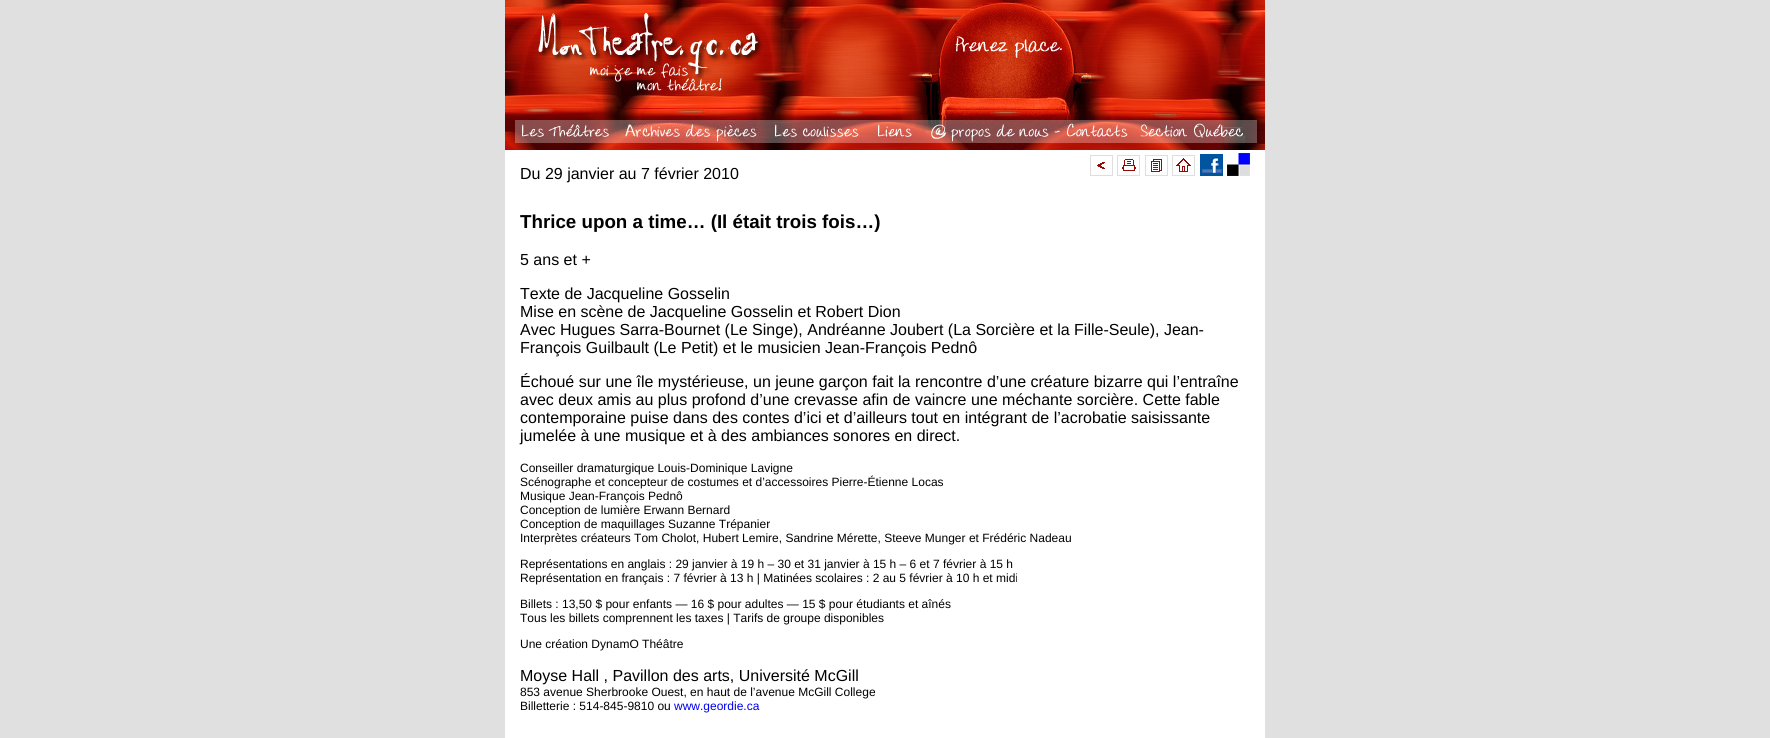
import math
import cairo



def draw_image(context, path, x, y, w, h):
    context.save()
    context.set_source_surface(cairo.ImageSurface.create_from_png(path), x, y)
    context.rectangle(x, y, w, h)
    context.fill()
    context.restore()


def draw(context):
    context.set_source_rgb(224 / 255, 224 / 255, 224 / 255)
    context.paint()
    context.set_source_rgb(1, 1, 1)
    context.rectangle(505, 150, 760, 588)
    context.fill()
    draw_image(context, "images/1.png", 505, 0, 760, 115)
    draw_image(context, "images/2.png", 505, 115, 112, 35)
    draw_image(context, "images/3.png", 617, 115, 148, 35)
    draw_image(context, "images/4.png", 765, 115, 103, 35)
    draw_image(context, "images/5.png", 868, 115, 54, 35)
    draw_image(context, "images/6.png", 922, 115, 212, 35)
    draw_image(context, "images/7.png", 1134, 115, 131, 35)
    draw_image(context, "images/8.png", 1090, 155, 23, 21)
    draw_image(context, "images/9.png", 1117, 155, 23, 21)
    draw_image(context, "images/10.png", 1145, 155, 23, 21)
    draw_image(context, "images/11.png", 1172, 155, 23, 21)
    draw_image(context, "images/12.png", 1200, 154, 23, 22)
    draw_image(context, "images/13.png", 1227, 153, 23, 23)
    context.select_font_face("Liberation Sans")
    context.set_font_size(16)
    context.set_source_rgb(0, 0, 0)
    context.move_to(520, 179)
    context.show_text("Du 29 janvier au 7 février 2010")
    context.select_font_face("Liberation Sans", cairo.FontSlant.NORMAL, cairo.FontWeight.BOLD)
    context.set_font_size(18.75)
    context.move_to(520, 228)
    context.show_text("Thrice upon a time… (Il était trois fois…)")
    context.select_font_face("Liberation Sans")
    context.set_font_size(16)
    context.move_to(520, 265)
    context.show_text("5 ans et +")
    context.move_to(520, 299)
    context.show_text("Texte de Jacqueline Gosselin")
    context.move_to(520, 317)
    context.show_text("Mise en scène de Jacqueline Gosselin et Robert Dion")
    context.move_to(520, 335)
    context.show_text("Avec Hugues Sarra-Bournet (Le Singe), Andréanne Joubert (La Sorcière et la Fille-Seule), Jean-")
    context.move_to(520, 353)
    context.show_text("François Guilbault (Le Petit) et le musicien Jean-François Pednô")
    context.move_to(520, 387)
    context.show_text("Échoué sur une île mystérieuse, un jeune garçon fait la rencontre d’une créature bizarre qui l’entraîne")
    context.move_to(520, 405)
    context.show_text("avec deux amis au plus profond d’une crevasse afin de vaincre une méchante sorcière. Cette fable")
    context.move_to(520, 423)
    context.show_text("contemporaine puise dans des contes d’ici et d’ailleurs tout en intégrant de l’acrobatie saisissante")
    context.move_to(520, 441)
    context.show_text("jumelée à une musique et à des ambiances sonores en direct.")
    context.set_font_size(12)
    context.move_to(520, 472)
    context.show_text("Conseiller dramaturgique Louis-Dominique Lavigne")
    context.move_to(520, 486)
    context.show_text("Scénographe et concepteur de costumes et d’accessoires Pierre-Étienne Locas")
    context.move_to(520, 500)
    context.show_text("Musique Jean-François Pednô")
    context.move_to(520, 514)
    context.show_text("Conception de lumière Erwann Bernard")
    context.move_to(520, 528)
    context.show_text("Conception de maquillages Suzanne Trépanier")
    context.move_to(520, 542)
    context.show_text("Interprètes créateurs Tom Cholot, Hubert Lemire, Sandrine Mérette, Steeve Munger et Frédéric Nadeau")
    context.move_to(520, 568)
    context.show_text("Représentations en anglais : 29 janvier à 19 h – 30 et 31 janvier à 15 h – 6 et 7 février à 15 h")
    context.move_to(520, 582)
    context.show_text("Représentation en français : 7 février à 13 h | Matinées scolaires : 2 au 5 février à 10 h et midi")
    context.move_to(520, 608)
    context.show_text("Billets : 13,50 $ pour enfants — 16 $ pour adultes — 15 $ pour étudiants et aînés")
    context.move_to(520, 622)
    context.show_text("Tous les billets comprennent les taxes | Tarifs de groupe disponibles")
    context.move_to(520, 648)
    context.show_text("Une création DynamO Théâtre")
    context.set_font_size(16)
    context.move_to(520, 681)
    context.show_text("Moyse Hall , Pavillon des arts, Université McGill")
    context.set_font_size(12)
    context.move_to(520, 696)
    context.show_text("853 avenue Sherbrooke Ouest, en haut de l’avenue McGill College")
    context.move_to(520, 710)
    context.show_text("Billetterie : 514-845-9810 ou")
    context.set_source_rgb(0, 0, 238 / 255)
    context.move_to(674, 710)
    context.show_text("www.geordie.ca")


surface = cairo.ImageSurface(cairo.Format.RGB24, 1770, 738)
context = cairo.Context(surface)
options = cairo.FontOptions()
options.set_hint_metrics(cairo.HintMetrics.OFF)
options.set_hint_style(cairo.HintStyle.NONE)
context.set_font_options(options)
context.set_miter_limit(4)
draw(context)
surface.write_to_png("out.png")
